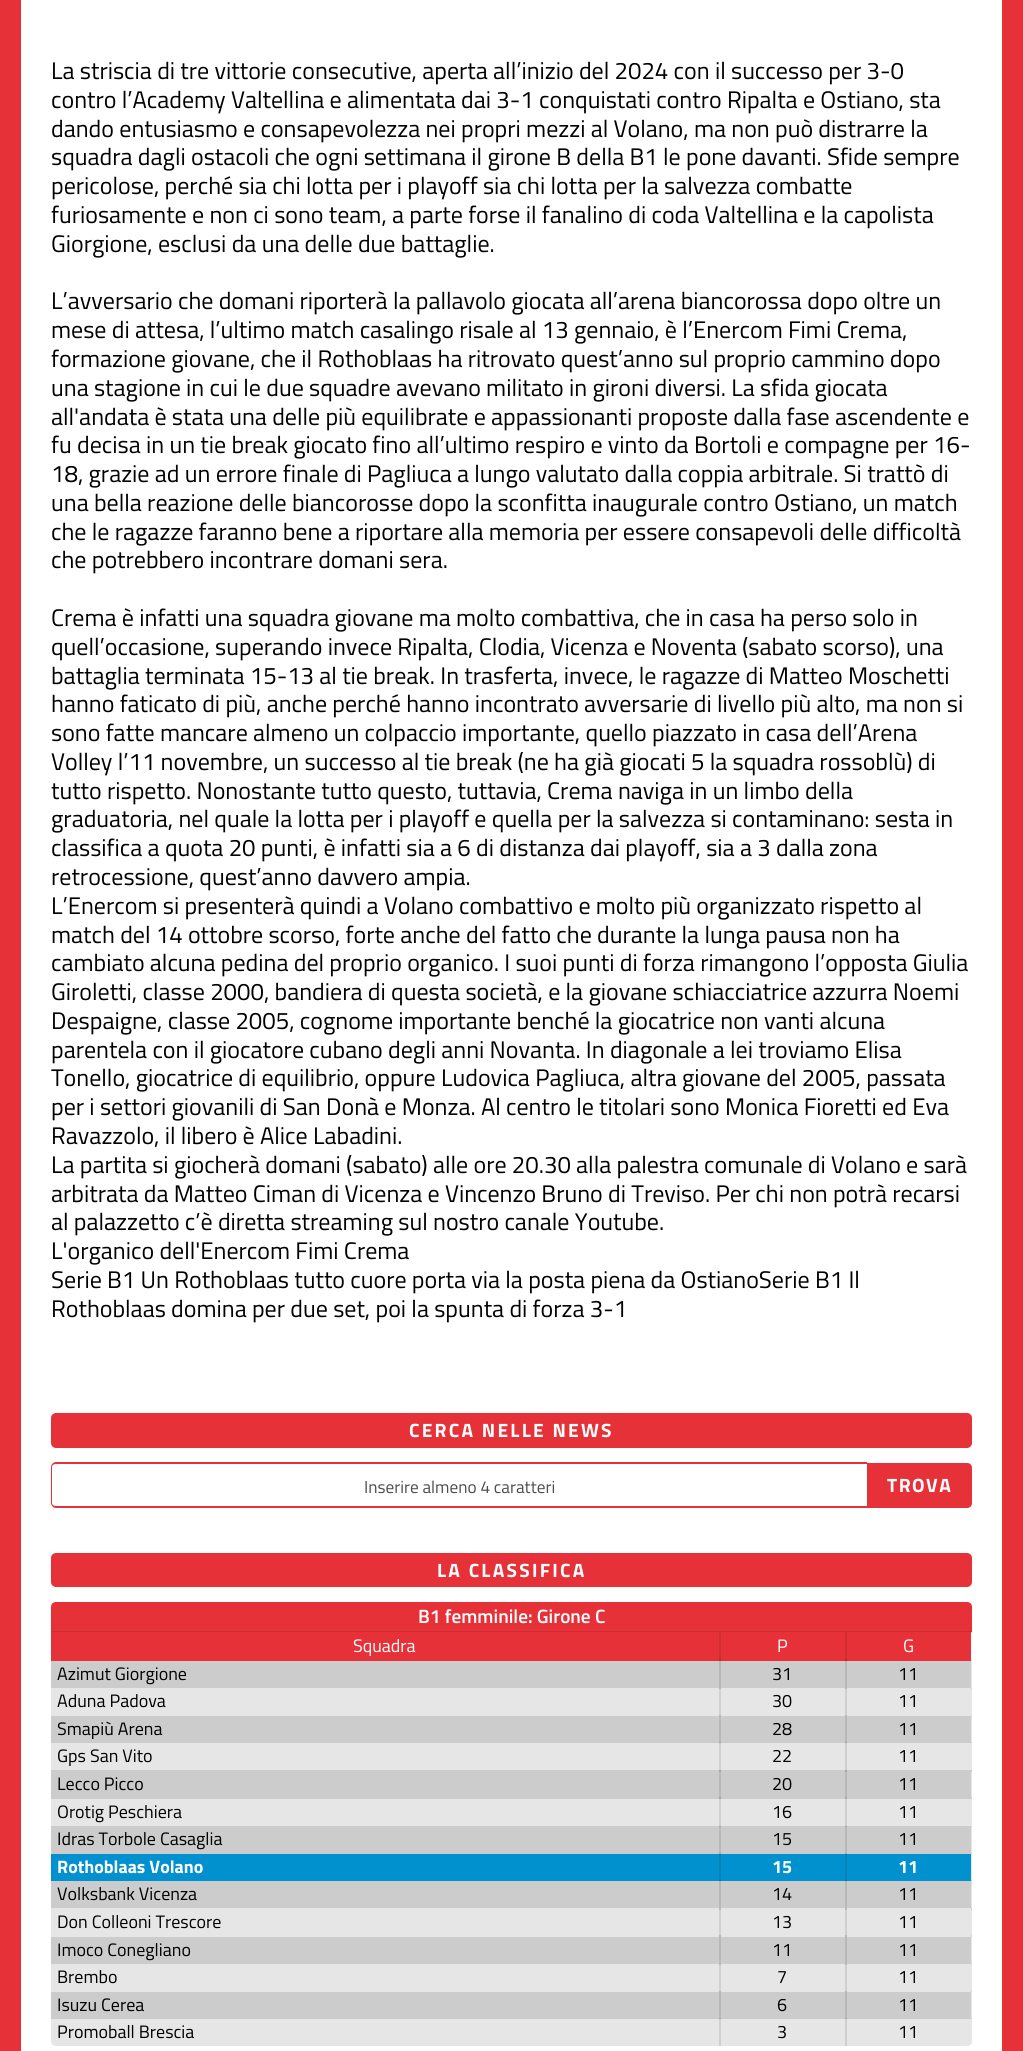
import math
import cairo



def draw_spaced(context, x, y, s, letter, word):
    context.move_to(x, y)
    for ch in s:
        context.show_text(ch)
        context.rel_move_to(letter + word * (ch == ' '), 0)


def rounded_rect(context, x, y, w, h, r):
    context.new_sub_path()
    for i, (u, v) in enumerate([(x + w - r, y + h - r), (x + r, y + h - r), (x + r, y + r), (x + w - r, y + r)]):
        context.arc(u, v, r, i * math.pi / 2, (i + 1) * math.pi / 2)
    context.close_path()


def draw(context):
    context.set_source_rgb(231 / 255, 49 / 255, 56 / 255)
    context.paint()
    context.set_source_rgb(1, 1, 1)
    context.rectangle(21, 0, 981, 2051)
    context.fill()
    context.set_source_rgb(230 / 255, 230 / 255, 230 / 255)
    context.rectangle(971, 1659, 1, 360)
    context.fill()
    context.set_source_rgb(207 / 255, 207 / 255, 207 / 255)
    context.rectangle(971, 1688, 1, 1)
    context.fill()
    context.rectangle(971, 1715, 1, 1)
    context.fill()
    context.rectangle(971, 1742, 1, 1)
    context.fill()
    context.rectangle(971, 1770, 1, 2)
    context.fill()
    context.rectangle(971, 1797, 1, 2)
    context.fill()
    context.rectangle(971, 1826, 1, 1)
    context.fill()
    context.rectangle(971, 1853, 1, 1)
    context.fill()
    context.rectangle(971, 1880, 1, 1)
    context.fill()
    context.rectangle(971, 1908, 1, 2)
    context.fill()
    context.rectangle(971, 1935, 1, 2)
    context.fill()
    context.rectangle(971, 1964, 1, 1)
    context.fill()
    context.rectangle(971, 1991, 1, 1)
    context.fill()
    context.set_source_rgb(230 / 255, 230 / 255, 230 / 255)
    context.rectangle(971, 1632, 1, 1)
    context.fill()
    context.set_source_rgb(231 / 255, 49 / 255, 56 / 255)
    rounded_rect(context, 51, 1413, 921, 35, 5)
    context.fill()
    context.set_fill_rule(cairo.FillRule.EVEN_ODD)
    context.new_path()
    context.move_to(56, 1462)
    context.line_to(867, 1462)
    context.line_to(867, 1508)
    context.line_to(56, 1508)
    context.curve_to(53, 1508, 51, 1505, 51, 1503)
    context.line_to(51, 1467)
    context.curve_to(51, 1465, 53, 1462, 56, 1462)
    context.close_path()
    context.move_to(56, 1464)
    context.line_to(867, 1464)
    context.line_to(867, 1506)
    context.line_to(56, 1506)
    context.curve_to(54, 1506, 52, 1505, 52, 1503)
    context.line_to(52, 1467)
    context.curve_to(52, 1465, 54, 1464, 56, 1464)
    context.close_path()
    context.fill()
    context.new_path()
    context.move_to(867, 1463)
    context.line_to(967, 1463)
    context.curve_to(970, 1463, 972, 1465, 972, 1468)
    context.line_to(972, 1503)
    context.curve_to(972, 1506, 970, 1508, 967, 1508)
    context.line_to(867, 1508)
    context.close_path()
    context.fill()
    rounded_rect(context, 51, 1553, 921, 34, 5)
    context.fill()
    context.new_path()
    context.move_to(56, 1602)
    context.line_to(967, 1602)
    context.curve_to(970, 1602, 972, 1604, 972, 1607)
    context.line_to(972, 1632)
    context.line_to(51, 1632)
    context.line_to(51, 1607)
    context.curve_to(51, 1604, 53, 1602, 56, 1602)
    context.close_path()
    context.fill()
    context.set_source_rgb(208 / 255, 44 / 255, 50 / 255)
    context.rectangle(51, 1631, 921, 1)
    context.fill()
    context.set_source_rgb(231 / 255, 49 / 255, 56 / 255)
    context.rectangle(51, 1632, 668, 29)
    context.fill()
    context.rectangle(721, 1632, 124, 29)
    context.fill()
    context.set_source_rgb(208 / 255, 44 / 255, 50 / 255)
    context.rectangle(719, 1632, 2, 29)
    context.fill()
    context.set_source_rgb(187 / 255, 40 / 255, 45 / 255)
    context.rectangle(719, 1659, 2, 2)
    context.fill()
    context.set_source_rgb(231 / 255, 49 / 255, 56 / 255)
    context.rectangle(847, 1632, 124, 29)
    context.fill()
    context.set_source_rgb(208 / 255, 44 / 255, 50 / 255)
    context.rectangle(845, 1632, 2, 29)
    context.fill()
    context.set_source_rgb(187 / 255, 40 / 255, 45 / 255)
    context.rectangle(845, 1659, 2, 2)
    context.fill()
    context.set_source_rgb(204 / 255, 204 / 255, 204 / 255)
    context.rectangle(51, 1661, 920, 27)
    context.fill()
    context.set_source_rgb(184 / 255, 184 / 255, 184 / 255)
    context.rectangle(719, 1661, 2, 27)
    context.fill()
    context.rectangle(845, 1661, 2, 27)
    context.fill()
    context.set_source_rgb(230 / 255, 230 / 255, 230 / 255)
    context.rectangle(51, 1688, 920, 28)
    context.fill()
    context.set_source_rgb(207 / 255, 207 / 255, 207 / 255)
    context.rectangle(719, 1688, 2, 28)
    context.fill()
    context.set_source_rgb(186 / 255, 186 / 255, 186 / 255)
    context.rectangle(719, 1688, 2, 1)
    context.fill()
    context.set_source_rgb(207 / 255, 207 / 255, 207 / 255)
    context.rectangle(845, 1688, 2, 28)
    context.fill()
    context.set_source_rgb(186 / 255, 186 / 255, 186 / 255)
    context.rectangle(845, 1688, 2, 1)
    context.fill()
    context.rectangle(719, 1715, 2, 1)
    context.fill()
    context.rectangle(845, 1715, 2, 1)
    context.fill()
    context.set_source_rgb(204 / 255, 204 / 255, 204 / 255)
    context.rectangle(51, 1716, 920, 27)
    context.fill()
    context.set_source_rgb(184 / 255, 184 / 255, 184 / 255)
    context.rectangle(719, 1716, 2, 27)
    context.fill()
    context.rectangle(845, 1716, 2, 27)
    context.fill()
    context.set_source_rgb(166 / 255, 166 / 255, 166 / 255)
    context.rectangle(719, 1742, 2, 1)
    context.fill()
    context.rectangle(845, 1742, 2, 1)
    context.fill()
    context.set_source_rgb(230 / 255, 230 / 255, 230 / 255)
    context.rectangle(51, 1743, 920, 27)
    context.fill()
    context.set_source_rgb(207 / 255, 207 / 255, 207 / 255)
    context.rectangle(719, 1743, 2, 27)
    context.fill()
    context.rectangle(845, 1743, 2, 27)
    context.fill()
    context.set_source_rgb(204 / 255, 204 / 255, 204 / 255)
    context.rectangle(51, 1770, 920, 29)
    context.fill()
    context.set_source_rgb(184 / 255, 184 / 255, 184 / 255)
    context.rectangle(719, 1770, 2, 29)
    context.fill()
    context.set_source_rgb(166 / 255, 166 / 255, 166 / 255)
    context.rectangle(719, 1770, 2, 2)
    context.fill()
    context.set_source_rgb(184 / 255, 184 / 255, 184 / 255)
    context.rectangle(845, 1770, 2, 29)
    context.fill()
    context.set_source_rgb(166 / 255, 166 / 255, 166 / 255)
    context.rectangle(845, 1770, 2, 2)
    context.fill()
    context.rectangle(719, 1797, 2, 2)
    context.fill()
    context.rectangle(845, 1797, 2, 2)
    context.fill()
    context.set_source_rgb(230 / 255, 230 / 255, 230 / 255)
    context.rectangle(51, 1799, 920, 27)
    context.fill()
    context.set_source_rgb(207 / 255, 207 / 255, 207 / 255)
    context.rectangle(719, 1799, 2, 27)
    context.fill()
    context.rectangle(845, 1799, 2, 27)
    context.fill()
    context.set_source_rgb(204 / 255, 204 / 255, 204 / 255)
    context.rectangle(51, 1826, 920, 28)
    context.fill()
    context.set_source_rgb(184 / 255, 184 / 255, 184 / 255)
    context.rectangle(719, 1826, 2, 28)
    context.fill()
    context.set_source_rgb(166 / 255, 166 / 255, 166 / 255)
    context.rectangle(719, 1826, 2, 1)
    context.fill()
    context.set_source_rgb(184 / 255, 184 / 255, 184 / 255)
    context.rectangle(845, 1826, 2, 28)
    context.fill()
    context.set_source_rgb(166 / 255, 166 / 255, 166 / 255)
    context.rectangle(845, 1826, 2, 1)
    context.fill()
    context.rectangle(719, 1853, 2, 1)
    context.fill()
    context.rectangle(845, 1853, 2, 1)
    context.fill()
    context.set_source_rgb(0, 145 / 255, 206 / 255)
    context.rectangle(51, 1854, 920, 27)
    context.fill()
    context.set_source_rgb(0, 131 / 255, 185 / 255)
    context.rectangle(719, 1854, 2, 27)
    context.fill()
    context.rectangle(845, 1854, 2, 27)
    context.fill()
    context.set_source_rgb(0, 118 / 255, 167 / 255)
    context.rectangle(719, 1880, 2, 1)
    context.fill()
    context.rectangle(845, 1880, 2, 1)
    context.fill()
    context.set_source_rgb(204 / 255, 204 / 255, 204 / 255)
    context.rectangle(51, 1881, 920, 27)
    context.fill()
    context.set_source_rgb(184 / 255, 184 / 255, 184 / 255)
    context.rectangle(719, 1881, 2, 27)
    context.fill()
    context.rectangle(845, 1881, 2, 27)
    context.fill()
    context.set_source_rgb(230 / 255, 230 / 255, 230 / 255)
    context.rectangle(51, 1908, 920, 29)
    context.fill()
    context.set_source_rgb(207 / 255, 207 / 255, 207 / 255)
    context.rectangle(719, 1908, 2, 29)
    context.fill()
    context.set_source_rgb(186 / 255, 186 / 255, 186 / 255)
    context.rectangle(719, 1908, 2, 2)
    context.fill()
    context.set_source_rgb(207 / 255, 207 / 255, 207 / 255)
    context.rectangle(845, 1908, 2, 29)
    context.fill()
    context.set_source_rgb(186 / 255, 186 / 255, 186 / 255)
    context.rectangle(845, 1908, 2, 2)
    context.fill()
    context.rectangle(719, 1935, 2, 2)
    context.fill()
    context.rectangle(845, 1935, 2, 2)
    context.fill()
    context.set_source_rgb(204 / 255, 204 / 255, 204 / 255)
    context.rectangle(51, 1937, 920, 27)
    context.fill()
    context.set_source_rgb(184 / 255, 184 / 255, 184 / 255)
    context.rectangle(719, 1937, 2, 27)
    context.fill()
    context.rectangle(845, 1937, 2, 27)
    context.fill()
    context.set_source_rgb(230 / 255, 230 / 255, 230 / 255)
    context.rectangle(51, 1964, 920, 28)
    context.fill()
    context.set_source_rgb(207 / 255, 207 / 255, 207 / 255)
    context.rectangle(719, 1964, 2, 28)
    context.fill()
    context.set_source_rgb(186 / 255, 186 / 255, 186 / 255)
    context.rectangle(719, 1964, 2, 1)
    context.fill()
    context.set_source_rgb(207 / 255, 207 / 255, 207 / 255)
    context.rectangle(845, 1964, 2, 28)
    context.fill()
    context.set_source_rgb(186 / 255, 186 / 255, 186 / 255)
    context.rectangle(845, 1964, 2, 1)
    context.fill()
    context.rectangle(719, 1991, 2, 1)
    context.fill()
    context.rectangle(845, 1991, 2, 1)
    context.fill()
    context.set_source_rgb(204 / 255, 204 / 255, 204 / 255)
    context.rectangle(51, 1992, 920, 27)
    context.fill()
    context.set_source_rgb(184 / 255, 184 / 255, 184 / 255)
    context.rectangle(719, 1992, 2, 27)
    context.fill()
    context.rectangle(845, 1992, 2, 27)
    context.fill()
    context.set_source_rgb(166 / 255, 166 / 255, 166 / 255)
    context.rectangle(719, 2018, 2, 1)
    context.fill()
    context.rectangle(845, 2018, 2, 1)
    context.fill()
    context.save()
    context.set_fill_rule(cairo.FillRule.WINDING)
    context.new_path()
    context.move_to(51, 1602)
    context.line_to(972, 1602)
    context.line_to(972, 2041)
    context.curve_to(972, 2044, 970, 2046, 967, 2046)
    context.line_to(56, 2046)
    context.curve_to(53, 2046, 51, 2044, 51, 2041)
    context.close_path()
    context.clip()
    context.set_source_rgb(230 / 255, 230 / 255, 230 / 255)
    context.new_path()
    context.move_to(51, 2019)
    context.line_to(971, 2019)
    context.line_to(971, 2046)
    context.line_to(56, 2046)
    context.curve_to(53, 2046, 51, 2044, 51, 2041)
    context.close_path()
    context.fill()
    context.restore()
    context.set_source_rgb(207 / 255, 207 / 255, 207 / 255)
    context.rectangle(719, 2019, 2, 27)
    context.fill()
    context.rectangle(845, 2019, 2, 27)
    context.fill()
    context.save()
    context.set_fill_rule(cairo.FillRule.WINDING)
    context.new_path()
    context.move_to(51, 1602)
    context.line_to(972, 1602)
    context.line_to(972, 2041)
    context.curve_to(972, 2044, 970, 2046, 967, 2046)
    context.line_to(56, 2046)
    context.curve_to(53, 2046, 51, 2044, 51, 2041)
    context.close_path()
    context.clip()
    context.set_source_rgb(230 / 255, 230 / 255, 230 / 255)
    context.rectangle(971, 2018, 1, 28)
    context.fill()
    context.restore()
    context.rectangle(971, 2018, 1, 1)
    context.fill()
    context.select_font_face("Titillium Web")
    context.set_font_size(24)
    context.set_source_rgb(0, 0, 0)
    context.move_to(51, 79)
    context.show_text("La striscia di tre vittorie consecutive, aperta all’inizio del 2024 con il successo per 3-0")
    context.move_to(51, 108)
    context.show_text("contro l’Academy Valtellina e alimentata dai 3-1 conquistati contro Ripalta e Ostiano, sta")
    context.move_to(51, 137)
    context.show_text("dando entusiasmo e consapevolezza nei propri mezzi al Volano, ma non può distrarre la")
    context.move_to(51, 165)
    context.show_text("squadra dagli ostacoli che ogni settimana il girone B della B1 le pone davanti. Sfide sempre")
    context.move_to(51, 194)
    context.show_text("pericolose, perché sia chi lotta per i playoff sia chi lotta per la salvezza combatte")
    context.move_to(51, 223)
    context.show_text("furiosamente e non ci sono team, a parte forse il fanalino di coda Valtellina e la capolista")
    context.move_to(51, 252)
    context.show_text("Giorgione, esclusi da una delle due battaglie.")
    context.move_to(51, 309)
    context.show_text("L’avversario che domani riporterà la pallavolo giocata all’arena biancorossa dopo oltre un")
    context.move_to(51, 338)
    context.show_text("mese di attesa, l’ultimo match casalingo risale al 13 gennaio, è l’Enercom Fimi Crema,")
    context.move_to(51, 367)
    context.show_text("formazione giovane, che il Rothoblaas ha ritrovato quest’anno sul proprio cammino dopo")
    context.move_to(51, 396)
    context.show_text("una stagione in cui le due squadre avevano militato in gironi diversi. La sfida giocata")
    context.move_to(51, 425)
    context.show_text("all'andata è stata una delle più equilibrate e appassionanti proposte dalla fase ascendente e")
    context.move_to(51, 453)
    context.show_text("fu decisa in un tie break giocato fino all’ultimo respiro e vinto da Bortoli e compagne per 16-")
    context.move_to(51, 482)
    context.show_text("18, grazie ad un errore finale di Pagliuca a lungo valutato dalla coppia arbitrale. Si trattò di")
    context.move_to(51, 511)
    context.show_text("una bella reazione delle biancorosse dopo la sconfitta inaugurale contro Ostiano, un match")
    context.move_to(51, 540)
    context.show_text("che le ragazze faranno bene a riportare alla memoria per essere consapevoli delle difficoltà")
    context.move_to(51, 568)
    context.show_text("che potrebbero incontrare domani sera.")
    context.move_to(51, 626)
    context.show_text("Crema è infatti una squadra giovane ma molto combattiva, che in casa ha perso solo in")
    context.move_to(51, 655)
    context.show_text("quell’occasione, superando invece Ripalta, Clodia, Vicenza e Noventa (sabato scorso), una")
    context.move_to(51, 684)
    context.show_text("battaglia terminata 15-13 al tie break. In trasferta, invece, le ragazze di Matteo Moschetti")
    context.move_to(51, 712)
    context.show_text("hanno faticato di più, anche perché hanno incontrato avversarie di livello più alto, ma non si")
    context.move_to(51, 741)
    context.show_text("sono fatte mancare almeno un colpaccio importante, quello piazzato in casa dell’Arena")
    context.move_to(51, 770)
    context.show_text("Volley l’11 novembre, un successo al tie break (ne ha già giocati 5 la squadra rossoblù) di")
    context.move_to(51, 799)
    context.show_text("tutto rispetto. Nonostante tutto questo, tuttavia, Crema naviga in un limbo della")
    context.move_to(51, 827)
    context.show_text("graduatoria, nel quale la lotta per i playoff e quella per la salvezza si contaminano: sesta in")
    context.move_to(51, 856)
    context.show_text("classifica a quota 20 punti, è infatti sia a 6 di distanza dai playoff, sia a 3 dalla zona")
    context.move_to(51, 885)
    context.show_text("retrocessione, quest’anno davvero ampia.")
    context.move_to(51, 914)
    context.show_text("L’Enercom si presenterà quindi a Volano combattivo e molto più organizzato rispetto al")
    context.move_to(51, 943)
    context.show_text("match del 14 ottobre scorso, forte anche del fatto che durante la lunga pausa non ha")
    context.move_to(51, 971)
    context.show_text("cambiato alcuna pedina del proprio organico. I suoi punti di forza rimangono l’opposta Giulia")
    context.move_to(51, 1000)
    context.show_text("Giroletti, classe 2000, bandiera di questa società, e la giovane schiacciatrice azzurra Noemi")
    context.move_to(51, 1029)
    context.show_text("Despaigne, classe 2005, cognome importante benché la giocatrice non vanti alcuna")
    context.move_to(51, 1058)
    context.show_text("parentela con il giocatore cubano degli anni Novanta. In diagonale a lei troviamo Elisa")
    context.move_to(51, 1086)
    context.show_text("Tonello, giocatrice di equilibrio, oppure Ludovica Pagliuca, altra giovane del 2005, passata")
    context.move_to(51, 1115)
    context.show_text("per i settori giovanili di San Donà e Monza. Al centro le titolari sono Monica Fioretti ed Eva")
    context.move_to(51, 1144)
    context.show_text("Ravazzolo, il libero è Alice Labadini.")
    context.move_to(51, 1173)
    context.show_text("La partita si giocherà domani (sabato) alle ore 20.30 alla palestra comunale di Volano e sarà")
    context.move_to(51, 1202)
    context.show_text("arbitrata da Matteo Ciman di Vicenza e Vincenzo Bruno di Treviso. Per chi non potrà recarsi")
    context.move_to(51, 1230)
    context.show_text("al palazzetto c’è diretta streaming sul nostro canale Youtube.")
    context.move_to(51, 1259)
    context.show_text("L'organico dell'Enercom Fimi Crema")
    context.move_to(51, 1288)
    context.show_text("Serie B1 Un Rothoblaas tutto cuore porta via la posta piena da OstianoSerie B1 Il")
    context.move_to(51, 1317)
    context.show_text("Rothoblaas domina per due set, poi la spunta di forza 3-1")
    context.select_font_face("Titillium Web", cairo.FontSlant.NORMAL, cairo.FontWeight.BOLD)
    context.set_font_size(19.25)
    context.set_source_rgb(1, 1, 1)
    draw_spaced(context, 409, 1437, "CERCA NELLE NEWS", 2.25, 0)
    context.select_font_face("Titillium Web")
    context.set_font_size(17.25)
    context.set_source_rgb(77 / 255, 77 / 255, 77 / 255)
    context.move_to(364, 1493)
    context.show_text("Inserire almeno 4 caratteri")
    context.select_font_face("Titillium Web", cairo.FontSlant.NORMAL, cairo.FontWeight.BOLD)
    context.set_font_size(19.25)
    context.set_source_rgb(1, 1, 1)
    draw_spaced(context, 887, 1492, "TROVA", 1.5, 0)
    draw_spaced(context, 437, 1577, "LA CLASSIFICA", 2.25, 0)
    context.select_font_face("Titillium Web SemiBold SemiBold")
    context.move_to(418, 1623)
    context.show_text("B1 femminile: Girone C")
    context.select_font_face("Titillium Web")
    context.set_font_size(18)
    context.move_to(353, 1652)
    context.show_text("Squadra")
    context.move_to(777, 1652)
    context.show_text("P")
    context.move_to(903, 1652)
    context.show_text("G")
    context.set_source_rgb(0, 0, 0)
    context.move_to(57, 1680)
    context.show_text("Azimut Giorgione")
    context.move_to(772, 1680)
    context.show_text("31")
    context.move_to(898, 1680)
    context.show_text("11")
    context.move_to(57, 1707)
    context.show_text("Aduna Padova")
    context.move_to(772, 1707)
    context.show_text("30")
    context.move_to(898, 1707)
    context.show_text("11")
    context.move_to(57, 1735)
    context.show_text("Smapiù Arena")
    context.move_to(772, 1735)
    context.show_text("28")
    context.move_to(898, 1735)
    context.show_text("11")
    context.move_to(57, 1762)
    context.show_text("Gps San Vito")
    context.move_to(772, 1762)
    context.show_text("22")
    context.move_to(898, 1762)
    context.show_text("11")
    context.move_to(57, 1790)
    context.show_text("Lecco Picco")
    context.move_to(772, 1790)
    context.show_text("20")
    context.move_to(898, 1790)
    context.show_text("11")
    context.move_to(57, 1818)
    context.show_text("Orotig Peschiera")
    context.move_to(772, 1818)
    context.show_text("16")
    context.move_to(898, 1818)
    context.show_text("11")
    context.move_to(57, 1845)
    context.show_text("Idras Torbole Casaglia")
    context.move_to(772, 1845)
    context.show_text("15")
    context.move_to(898, 1845)
    context.show_text("11")
    context.select_font_face("Titillium Web", cairo.FontSlant.NORMAL, cairo.FontWeight.BOLD)
    context.set_source_rgb(1, 1, 1)
    context.move_to(57, 1873)
    context.show_text("Rothoblaas Volano")
    context.move_to(772, 1873)
    context.show_text("15")
    context.move_to(898, 1873)
    context.show_text("11")
    context.select_font_face("Titillium Web")
    context.set_source_rgb(0, 0, 0)
    context.move_to(57, 1900)
    context.show_text("Volksbank Vicenza")
    context.move_to(772, 1900)
    context.show_text("14")
    context.move_to(898, 1900)
    context.show_text("11")
    context.move_to(57, 1928)
    context.show_text("Don Colleoni Trescore")
    context.move_to(772, 1928)
    context.show_text("13")
    context.move_to(898, 1928)
    context.show_text("11")
    context.move_to(57, 1956)
    context.show_text("Imoco Conegliano")
    context.move_to(772, 1956)
    context.show_text("11")
    context.move_to(898, 1956)
    context.show_text("11")
    context.move_to(57, 1983)
    context.show_text("Brembo")
    context.move_to(777, 1983)
    context.show_text("7")
    context.move_to(898, 1983)
    context.show_text("11")
    context.move_to(57, 2011)
    context.show_text("Isuzu Cerea")
    context.move_to(777, 2011)
    context.show_text("6")
    context.move_to(898, 2011)
    context.show_text("11")
    context.move_to(57, 2038)
    context.show_text("Promoball Brescia")
    context.move_to(777, 2038)
    context.show_text("3")
    context.move_to(898, 2038)
    context.show_text("11")


surface = cairo.ImageSurface(cairo.Format.RGB24, 1023, 2051)
context = cairo.Context(surface)
options = cairo.FontOptions()
options.set_hint_metrics(cairo.HintMetrics.OFF)
options.set_hint_style(cairo.HintStyle.NONE)
context.set_font_options(options)
context.set_miter_limit(4)
draw(context)
surface.write_to_png("out.png")
